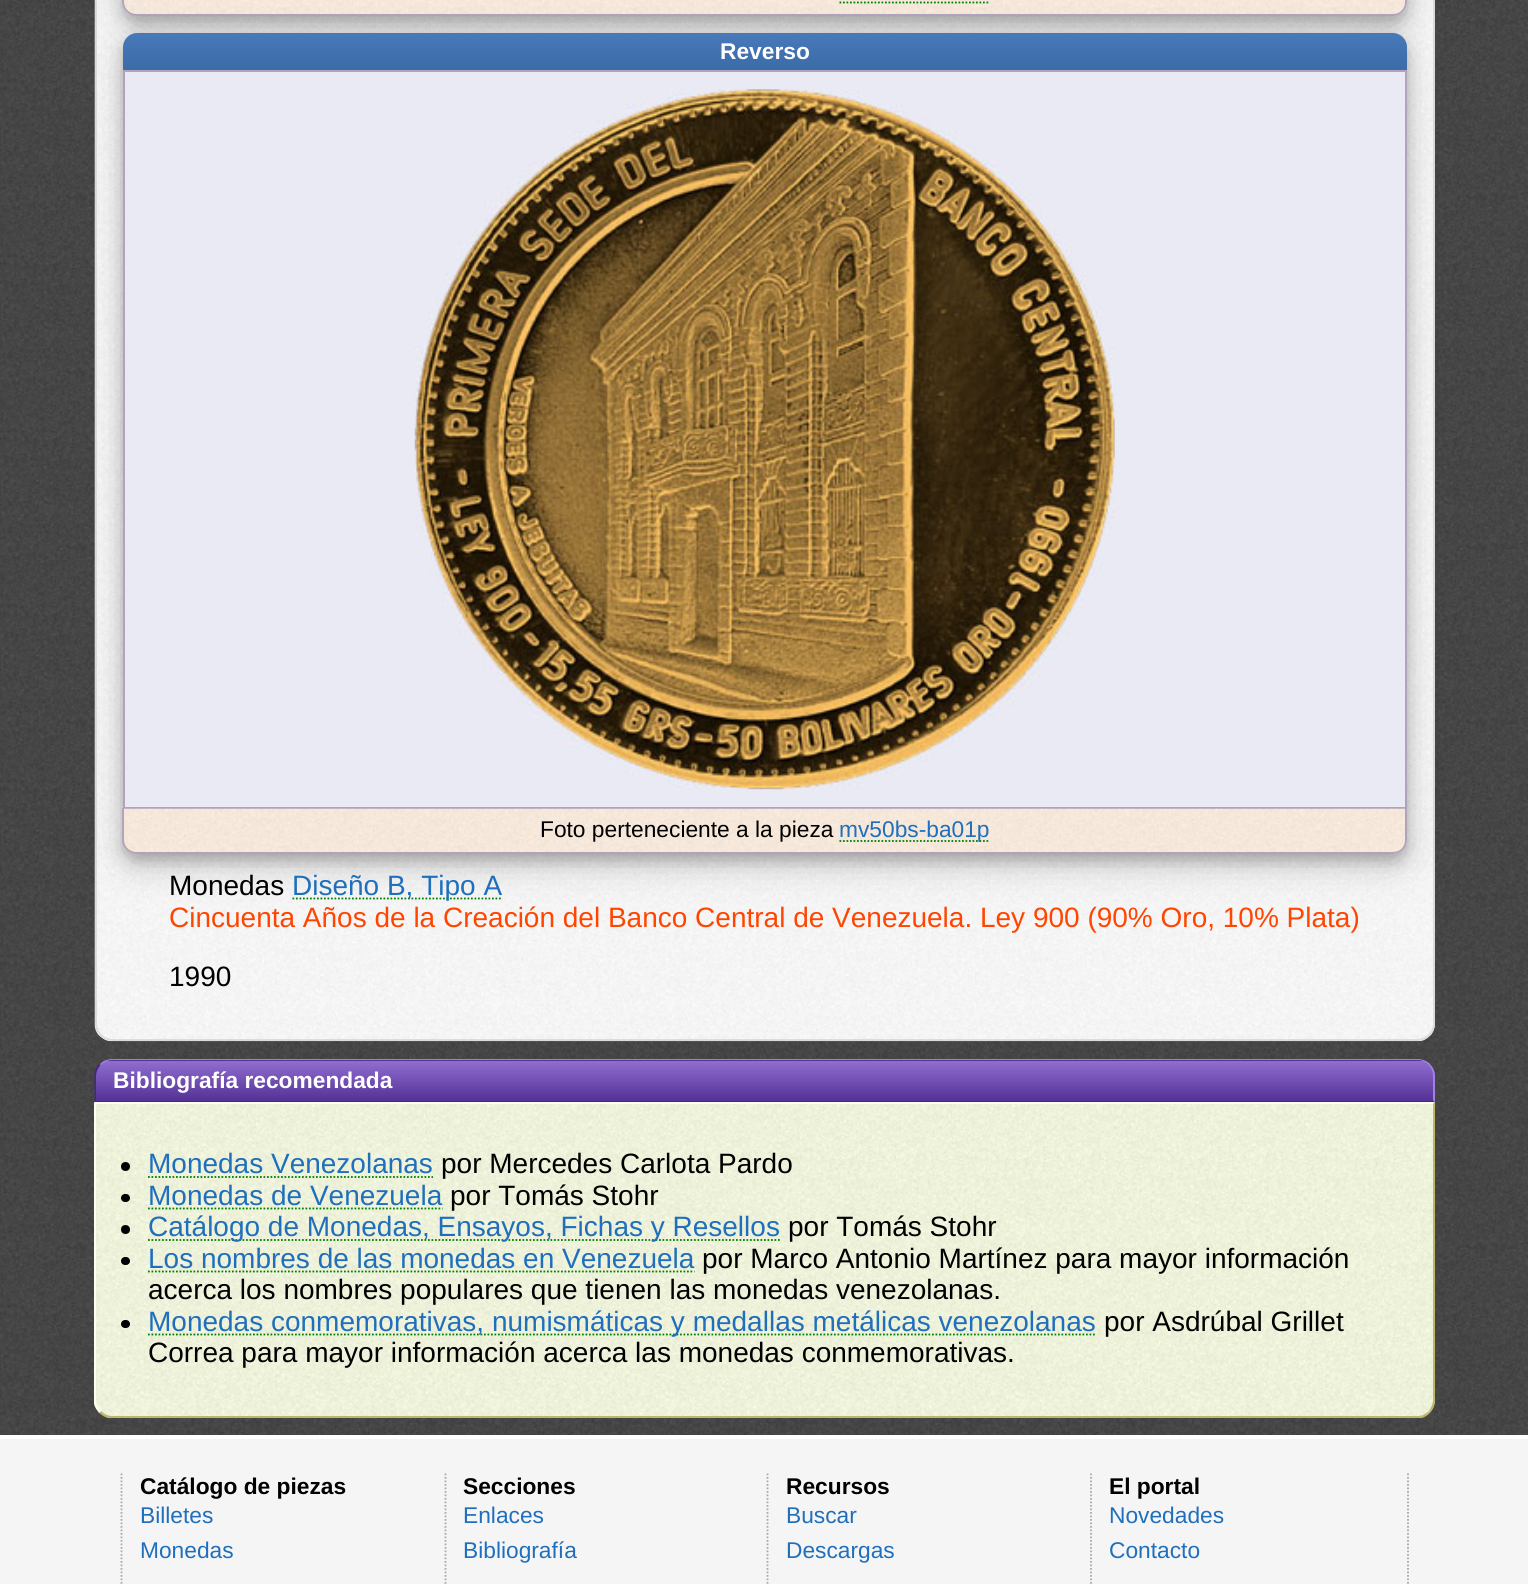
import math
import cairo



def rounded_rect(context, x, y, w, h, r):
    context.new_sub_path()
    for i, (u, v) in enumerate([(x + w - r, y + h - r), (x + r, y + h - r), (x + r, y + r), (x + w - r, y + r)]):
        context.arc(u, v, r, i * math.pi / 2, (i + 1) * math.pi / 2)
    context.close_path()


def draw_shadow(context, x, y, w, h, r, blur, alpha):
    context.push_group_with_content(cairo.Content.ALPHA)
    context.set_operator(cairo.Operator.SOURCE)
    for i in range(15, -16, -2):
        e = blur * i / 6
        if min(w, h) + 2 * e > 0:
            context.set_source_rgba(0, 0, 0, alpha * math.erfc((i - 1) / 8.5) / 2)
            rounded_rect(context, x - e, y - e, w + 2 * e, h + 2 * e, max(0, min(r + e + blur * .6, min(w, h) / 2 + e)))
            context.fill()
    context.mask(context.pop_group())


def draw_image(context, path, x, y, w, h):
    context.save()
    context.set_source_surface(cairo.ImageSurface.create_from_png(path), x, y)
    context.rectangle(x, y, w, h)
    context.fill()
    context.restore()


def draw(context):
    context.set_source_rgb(1, 1, 1)
    context.paint()
    draw_image(context, "images/1.png", 0, 0, 1528, 1435)
    draw_image(context, "images/2.png", 94, 0, 1341, 1042)
    rounded_rect(context, 96, -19, 1338, 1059, 17)
    context.set_source_rgb(220 / 255, 220 / 255, 220 / 255)
    context.stroke()
    context.set_source_rgb(0, 0, 0)
    draw_shadow(context, 123, -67, 1284, 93, 14, 17.5, 0.19)
    draw_shadow(context, 123, -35, 1284, 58, 14, 7, 0.2)
    draw_image(context, "images/3.png", 122, 0, 1285, 16)
    context.set_source_rgb(177 / 255, 163 / 255, 188 / 255)
    context.set_fill_rule(cairo.FillRule.EVEN_ODD)
    context.new_path()
    context.move_to(122, -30)
    context.line_to(1407, -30)
    context.line_to(1407, 2)
    context.curve_to(1407, 9, 1401, 16, 1393, 16)
    context.line_to(136, 16)
    context.curve_to(129, 16, 122, 9, 122, 2)
    context.close_path()
    context.move_to(124, -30)
    context.line_to(1405, -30)
    context.line_to(1405, 2)
    context.curve_to(1405, 9, 1400, 14, 1393, 14)
    context.line_to(136, 14)
    context.curve_to(130, 14, 124, 9, 124, 2)
    context.close_path()
    context.fill()
    context.set_source_rgb(0, 0, 0)
    draw_shadow(context, 123, 44, 1284, 821, 14, 17.5, 0.19)
    context.new_path()
    context.move_to(839.5, 2.5)
    context.line_to(990, 2.5)
    context.set_source_rgb(0, 128 / 255, 0)
    context.set_line_width(1.8)
    context.set_dash([1.75, 1.75])
    context.stroke()
    context.set_source_rgb(0, 0, 0)
    draw_shadow(context, 123, 40, 1284, 821, 14, 7, 0.2)
    gradient = cairo.LinearGradient(765, 70, 765, 33)
    gradient.add_color_stop_rgba(0, 59 / 255, 107 / 255, 169 / 255, 1)
    gradient.add_color_stop_rgba(1, 72 / 255, 121 / 255, 184 / 255, 1)
    context.set_source(gradient)
    context.new_path()
    context.move_to(137, 33)
    context.line_to(1393, 33)
    context.curve_to(1400.5, 33, 1407, 39.5, 1407, 47)
    context.line_to(1407, 70)
    context.line_to(123, 70)
    context.line_to(123, 47)
    context.curve_to(123, 39.5, 129.5, 33, 137, 33)
    context.close_path()
    context.fill()
    context.set_source_rgb(234 / 255, 234 / 255, 244 / 255)
    context.rectangle(124, 71, 1282, 737)
    context.fill_preserve()
    context.set_source_rgb(177 / 255, 163 / 255, 188 / 255)
    context.set_line_width(2)
    context.set_dash([])
    context.stroke()
    draw_image(context, "images/4.png", 414, 89, 701, 701)
    draw_image(context, "images/5.png", 122, 808, 1285, 46)
    context.new_path()
    context.move_to(122, 808)
    context.line_to(1407, 808)
    context.line_to(1407, 840)
    context.curve_to(1407, 848, 1401, 854, 1393, 854)
    context.line_to(136, 854)
    context.curve_to(129, 854, 122, 848, 122, 840)
    context.close_path()
    context.move_to(124, 808)
    context.line_to(1405, 808)
    context.line_to(1405, 840)
    context.curve_to(1405, 847, 1400, 852, 1393, 852)
    context.line_to(136, 852)
    context.curve_to(130, 852, 124, 847, 124, 840)
    context.close_path()
    context.fill()
    context.new_path()
    context.move_to(839.5, 841)
    context.line_to(990, 841)
    context.set_source_rgb(0, 128 / 255, 0)
    context.set_line_width(1.8)
    context.set_dash([1.75, 1.75])
    context.stroke()
    context.new_path()
    context.move_to(292.5, 898.5)
    context.line_to(502.5, 898.5)
    context.stroke()
    context.save()
    context.set_fill_rule(cairo.FillRule.WINDING)
    context.new_path()
    context.move_to(113, 1059)
    context.line_to(1417, 1059)
    context.curve_to(1427, 1059, 1435, 1067, 1435, 1077)
    context.line_to(1435, 1103)
    context.line_to(95, 1103)
    context.line_to(95, 1077)
    context.curve_to(95, 1067, 103, 1059, 113, 1059)
    context.close_path()
    context.clip()
    gradient = cairo.LinearGradient(765, 1061, 765, 1020)
    gradient.add_color_stop_rgba(0, 84 / 255, 49 / 255, 149 / 255, 1)
    gradient.add_color_stop_rgba(1, 144 / 255, 110 / 255, 208 / 255, 1)
    context.set_source(gradient)
    context.rectangle(105, 1059, 1320, 2)
    context.fill()
    gradient = cairo.LinearGradient(765, 1101, 765, 1061)
    gradient.add_color_stop_rgba(0, 84 / 255, 49 / 255, 149 / 255, 1)
    gradient.add_color_stop_rgba(1, 144 / 255, 110 / 255, 208 / 255, 1)
    context.set_source(gradient)
    context.rectangle(96, 1061, 1339, 40)
    context.fill()
    context.restore()
    context.set_source_rgb(162 / 255, 128 / 255, 227 / 255)
    context.set_fill_rule(cairo.FillRule.WINDING)
    context.new_path()
    context.move_to(112, 1059)
    context.curve_to(107, 1059, 103, 1061, 100, 1064)
    context.line_to(101, 1065)
    context.curve_to(104, 1062, 108, 1060, 112, 1060)
    context.line_to(1418, 1060)
    context.curve_to(1422, 1060, 1426, 1062, 1429, 1065)
    context.line_to(1430, 1064)
    context.curve_to(1427, 1061, 1422, 1059, 1418, 1059)
    context.close_path()
    context.fill()
    context.new_path()
    context.move_to(1429.5, 1064)
    context.curve_to(1433, 1067, 1435, 1071.5, 1435, 1076)
    context.line_to(1435, 1102)
    context.line_to(1434.5, 1102)
    context.line_to(1433, 1100.5)
    context.line_to(1433, 1076)
    context.curve_to(1433, 1072, 1431.5, 1068, 1428.5, 1065)
    context.close_path()
    context.fill()
    context.set_source_rgb(70 / 255, 38 / 255, 129 / 255)
    context.new_path()
    context.move_to(1434, 1102)
    context.line_to(95, 1102)
    context.line_to(96, 1101)
    context.line_to(1433, 1101)
    context.line_to(1433, 1100)
    context.close_path()
    context.fill()
    context.new_path()
    context.move_to(94.5, 1072)
    context.curve_to(95.5, 1069, 97, 1066, 99.5, 1064)
    context.line_to(100.5, 1065)
    context.curve_to(98, 1068, 96, 1072, 96, 1076)
    context.line_to(96, 1101)
    context.line_to(95, 1102)
    context.line_to(94.5, 1102)
    context.close_path()
    context.fill()
    draw_image(context, "images/6.png", 94, 1102, 1341, 315)
    context.set_source_rgb(1, 1, 240 / 255)
    context.new_path()
    context.move_to(96, 1104)
    context.line_to(1433, 1104)
    context.line_to(1435, 1102)
    context.line_to(94, 1102)
    context.close_path()
    context.fill()
    context.set_source_rgb(189 / 255, 183 / 255, 107 / 255)
    context.new_path()
    context.move_to(1435, 1102)
    context.line_to(1433, 1104)
    context.line_to(1433, 1400)
    context.curve_to(1433, 1404, 1431, 1408, 1429, 1411)
    context.line_to(1430, 1413)
    context.curve_to(1433, 1409, 1435, 1405, 1435, 1400)
    context.close_path()
    context.fill()
    context.new_path()
    context.move_to(108, 1418)
    context.curve_to(104, 1417, 102, 1415, 99, 1413)
    context.line_to(101, 1411)
    context.curve_to(104, 1414, 108, 1416, 112, 1416)
    context.line_to(1418, 1416)
    context.curve_to(1422, 1416, 1426, 1414, 1429, 1411)
    context.line_to(1430, 1413)
    context.curve_to(1428, 1415, 1425, 1417, 1422, 1418)
    context.close_path()
    context.fill()
    context.set_source_rgb(1, 1, 240 / 255)
    context.new_path()
    context.move_to(96, 1104)
    context.line_to(96, 1400)
    context.curve_to(96, 1404, 98, 1408, 101, 1411)
    context.line_to(99, 1413)
    context.curve_to(97, 1410, 95, 1408, 94, 1404)
    context.line_to(94, 1102)
    context.close_path()
    context.fill()
    context.set_source_rgb(0, 0, 0)
    context.arc(125.5, 1166.5, 4.5, 0, 2 * math.pi)
    context.fill()
    context.new_path()
    context.move_to(148, 1177)
    context.line_to(433, 1177)
    context.set_source_rgb(0, 128 / 255, 0)
    context.stroke()
    context.set_source_rgb(0, 0, 0)
    rounded_rect(context, 121, 1194, 9, 8, 4)
    context.fill()
    context.new_path()
    context.move_to(148, 1208.5)
    context.line_to(442.5, 1208.5)
    context.set_source_rgb(0, 128 / 255, 0)
    context.stroke()
    context.set_source_rgb(0, 0, 0)
    context.arc(125.5, 1229.5, 4.5, 0, 2 * math.pi)
    context.fill()
    context.new_path()
    context.move_to(148, 1240)
    context.line_to(780, 1240)
    context.set_source_rgb(0, 128 / 255, 0)
    context.stroke()
    context.set_source_rgb(0, 0, 0)
    rounded_rect(context, 121, 1257, 9, 8, 4)
    context.fill()
    context.new_path()
    context.move_to(148, 1271.5)
    context.line_to(694.5, 1271.5)
    context.set_source_rgb(0, 128 / 255, 0)
    context.stroke()
    context.set_source_rgb(0, 0, 0)
    rounded_rect(context, 121, 1320, 9, 8, 4)
    context.fill()
    context.new_path()
    context.move_to(148, 1334.5)
    context.line_to(1096, 1334.5)
    context.set_source_rgb(0, 128 / 255, 0)
    context.stroke()
    context.set_source_rgb(245 / 255, 245 / 255, 245 / 255)
    context.rectangle(0, 1439, 1528, 145)
    context.fill()
    context.new_path()
    context.move_to(121.5, 1473.5)
    context.line_to(121.5, 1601)
    context.set_source_rgb(169 / 255, 169 / 255, 169 / 255)
    context.stroke()
    context.new_path()
    context.move_to(445.5, 1473.5)
    context.line_to(445.5, 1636)
    context.stroke()
    context.new_path()
    context.move_to(767.5, 1473.5)
    context.line_to(767.5, 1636)
    context.stroke()
    context.new_path()
    context.move_to(1408, 1473.5)
    context.line_to(1408, 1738)
    context.stroke()
    context.new_path()
    context.move_to(1091, 1473.5)
    context.line_to(1091, 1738)
    context.stroke()
    context.select_font_face("Liberation Sans", cairo.FontSlant.NORMAL, cairo.FontWeight.BOLD)
    context.set_font_size(22.75)
    context.set_source_rgb(1, 1, 1)
    context.move_to(720, 59)
    context.show_text("Reverso")
    context.select_font_face("Liberation Sans")
    context.set_source_rgb(0, 0, 0)
    context.move_to(540, 837)
    context.show_text("Foto perteneciente a la pieza")
    context.set_source_rgb(31 / 255, 111 / 255, 188 / 255)
    context.move_to(839, 837)
    context.show_text("mv50bs-ba01p")
    context.set_font_size(28)
    context.set_source_rgb(0, 0, 0)
    context.move_to(169, 895)
    context.show_text("Monedas")
    context.set_source_rgb(31 / 255, 111 / 255, 188 / 255)
    context.move_to(292, 895)
    context.show_text("Diseño B, Tipo A")
    context.set_source_rgb(1, 69 / 255, 0)
    context.move_to(169, 927)
    context.show_text("Cincuenta Años de la Creación del Banco Central de Venezuela. Ley 900 (90% Oro, 10% Plata)")
    context.set_source_rgb(0, 0, 0)
    context.move_to(169, 986)
    context.show_text("1990")
    context.select_font_face("Liberation Sans", cairo.FontSlant.NORMAL, cairo.FontWeight.BOLD)
    context.set_font_size(22.75)
    context.set_source_rgb(1, 1, 1)
    context.move_to(113, 1088)
    context.show_text("Bibliografía recomendada")
    context.select_font_face("Liberation Sans")
    context.set_font_size(28)
    context.set_source_rgb(31 / 255, 111 / 255, 188 / 255)
    context.move_to(148, 1173)
    context.show_text("Monedas Venezolanas")
    context.set_source_rgb(0, 0, 0)
    context.move_to(441, 1173)
    context.show_text("por Mercedes Carlota Pardo")
    context.set_source_rgb(31 / 255, 111 / 255, 188 / 255)
    context.move_to(148, 1205)
    context.show_text("Monedas de Venezuela")
    context.set_source_rgb(0, 0, 0)
    context.move_to(450, 1205)
    context.show_text("por Tomás Stohr")
    context.set_source_rgb(31 / 255, 111 / 255, 188 / 255)
    context.move_to(148, 1236)
    context.show_text("Catálogo de Monedas, Ensayos, Fichas y Resellos")
    context.set_source_rgb(0, 0, 0)
    context.move_to(788, 1236)
    context.show_text("por Tomás Stohr")
    context.set_source_rgb(31 / 255, 111 / 255, 188 / 255)
    context.move_to(148, 1268)
    context.show_text("Los nombres de las monedas en Venezuela")
    context.set_source_rgb(0, 0, 0)
    context.move_to(702, 1268)
    context.show_text("por Marco Antonio Martínez para mayor información")
    context.move_to(148, 1299)
    context.show_text("acerca los nombres populares que tienen las monedas venezolanas.")
    context.set_source_rgb(31 / 255, 111 / 255, 188 / 255)
    context.move_to(148, 1331)
    context.show_text("Monedas conmemorativas, numismáticas y medallas metálicas venezolanas")
    context.set_source_rgb(0, 0, 0)
    context.move_to(1104, 1331)
    context.show_text("por Asdrúbal Grillet")
    context.move_to(148, 1362)
    context.show_text("Correa para mayor información acerca las monedas conmemorativas.")
    context.select_font_face("Liberation Sans", cairo.FontSlant.NORMAL, cairo.FontWeight.BOLD)
    context.set_font_size(22.75)
    context.move_to(140, 1494)
    context.show_text("Catálogo de piezas")
    context.select_font_face("Liberation Sans")
    context.set_source_rgb(31 / 255, 111 / 255, 188 / 255)
    context.move_to(140, 1523)
    context.show_text("Billetes")
    context.move_to(140, 1558)
    context.show_text("Monedas")
    context.select_font_face("Liberation Sans", cairo.FontSlant.NORMAL, cairo.FontWeight.BOLD)
    context.set_source_rgb(0, 0, 0)
    context.move_to(463, 1494)
    context.show_text("Secciones")
    context.select_font_face("Liberation Sans")
    context.set_source_rgb(31 / 255, 111 / 255, 188 / 255)
    context.move_to(463, 1523)
    context.show_text("Enlaces")
    context.move_to(463, 1558)
    context.show_text("Bibliografía")
    context.select_font_face("Liberation Sans", cairo.FontSlant.NORMAL, cairo.FontWeight.BOLD)
    context.set_source_rgb(0, 0, 0)
    context.move_to(786, 1494)
    context.show_text("Recursos")
    context.select_font_face("Liberation Sans")
    context.set_source_rgb(31 / 255, 111 / 255, 188 / 255)
    context.move_to(786, 1523)
    context.show_text("Buscar")
    context.move_to(786, 1558)
    context.show_text("Descargas")
    context.select_font_face("Liberation Sans", cairo.FontSlant.NORMAL, cairo.FontWeight.BOLD)
    context.set_source_rgb(0, 0, 0)
    context.move_to(1109, 1494)
    context.show_text("El portal")
    context.select_font_face("Liberation Sans")
    context.set_source_rgb(31 / 255, 111 / 255, 188 / 255)
    context.move_to(1109, 1523)
    context.show_text("Novedades")
    context.move_to(1109, 1558)
    context.show_text("Contacto")


surface = cairo.ImageSurface(cairo.Format.RGB24, 1528, 1584)
context = cairo.Context(surface)
options = cairo.FontOptions()
options.set_hint_metrics(cairo.HintMetrics.OFF)
options.set_hint_style(cairo.HintStyle.NONE)
context.set_font_options(options)
context.set_miter_limit(4)
draw(context)
surface.write_to_png("out.png")
